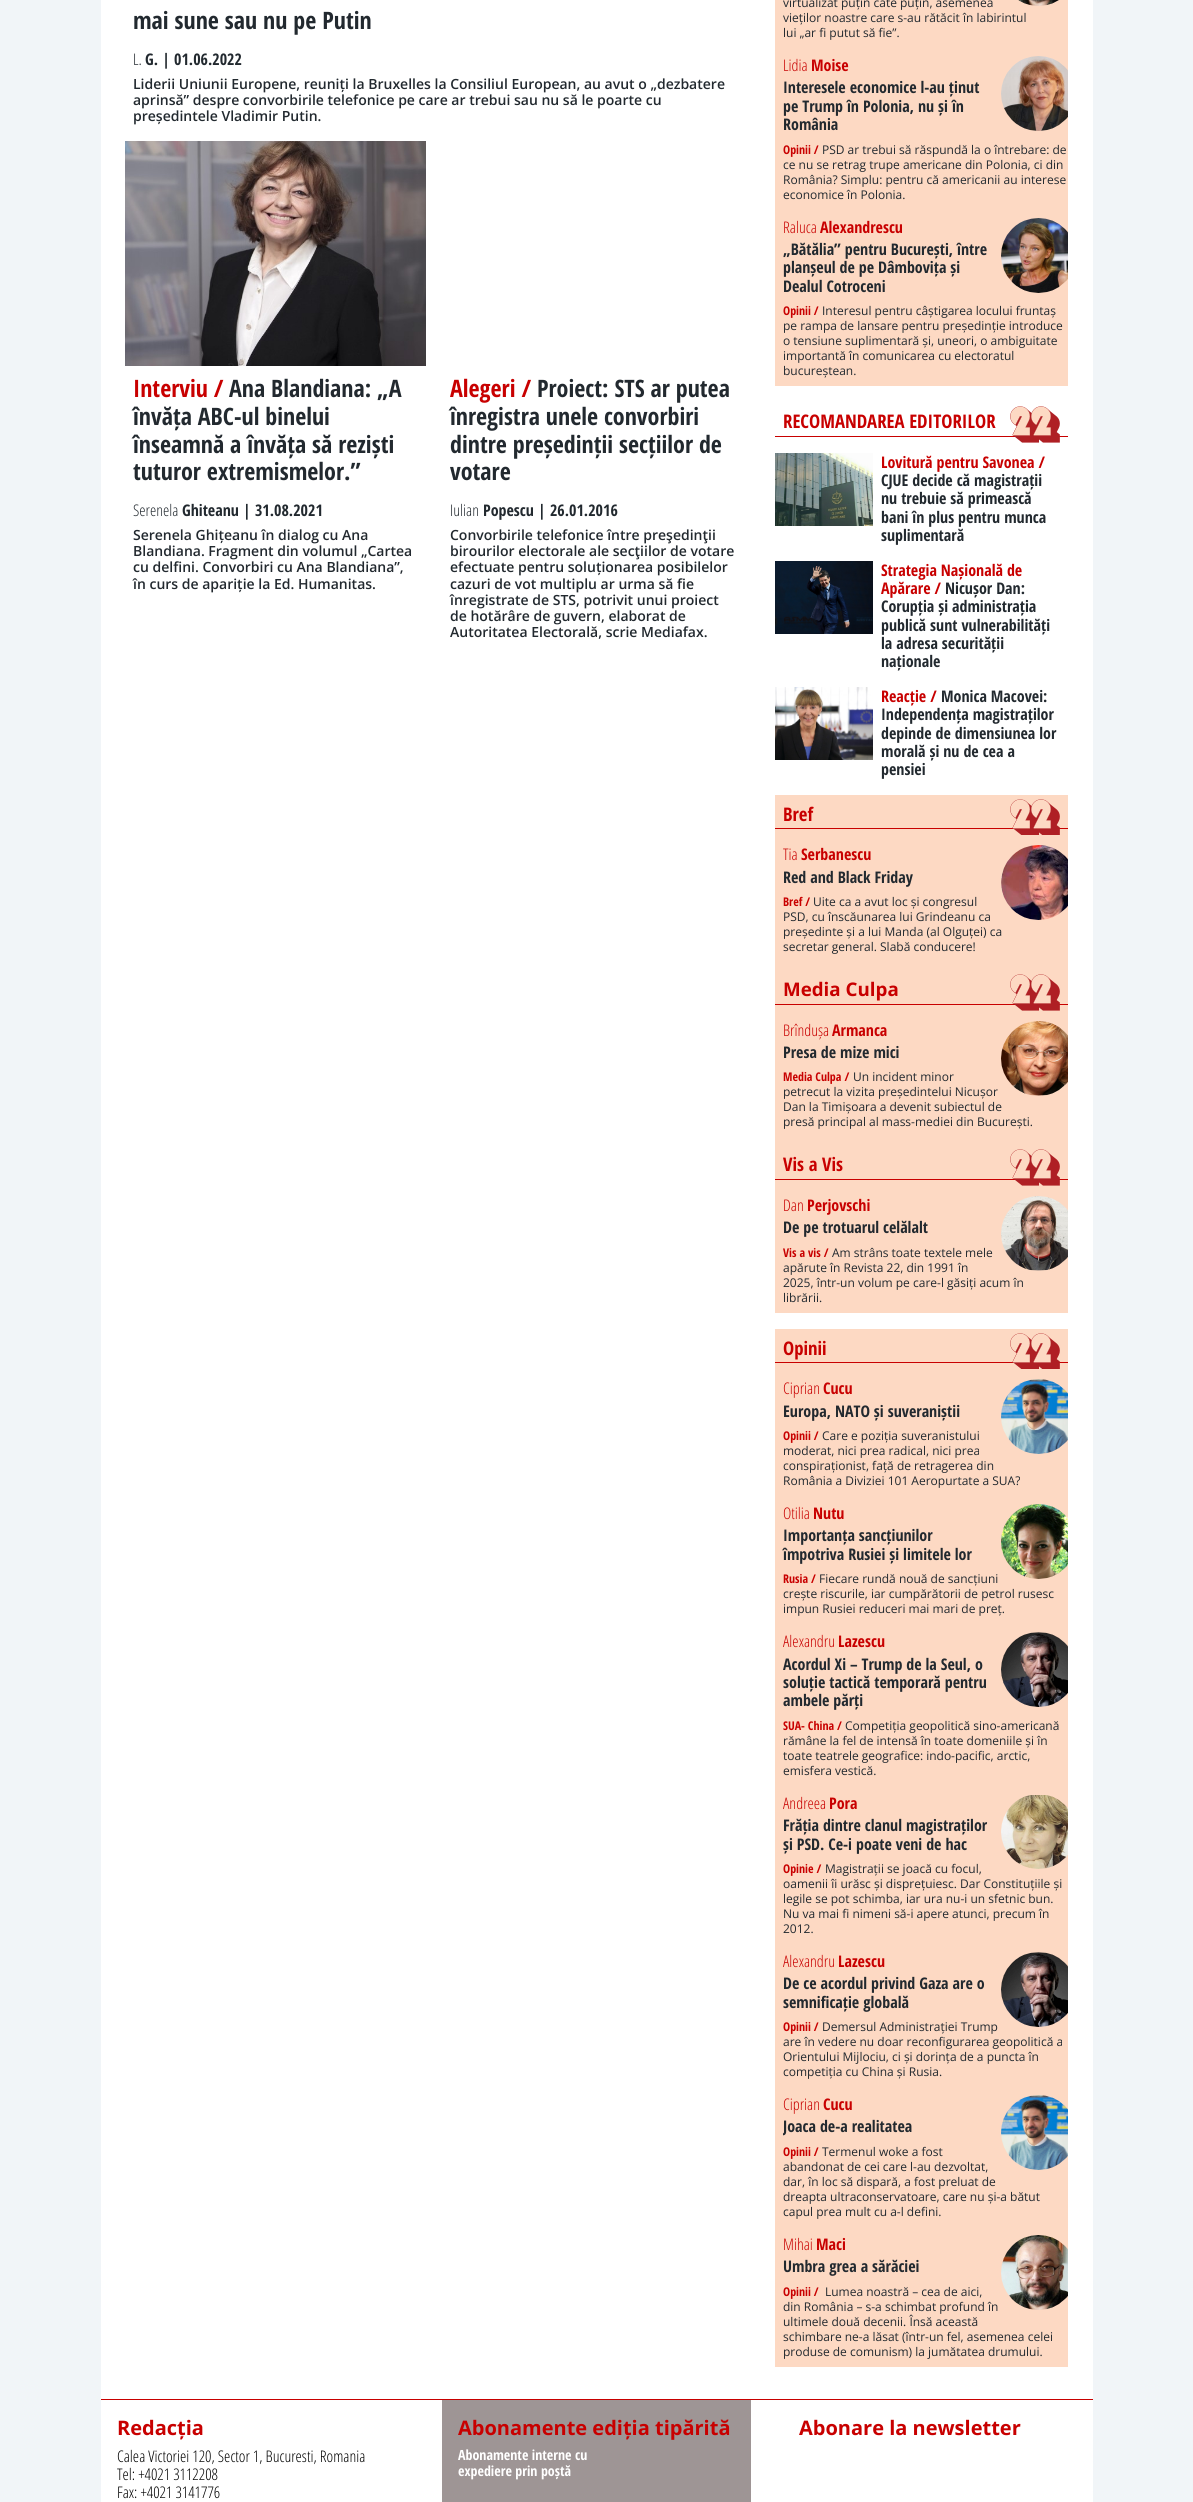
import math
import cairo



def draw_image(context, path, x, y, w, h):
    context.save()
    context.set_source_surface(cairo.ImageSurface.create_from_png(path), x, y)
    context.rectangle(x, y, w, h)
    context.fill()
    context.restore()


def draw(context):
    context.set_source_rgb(241 / 255, 245 / 255, 248 / 255)
    context.paint()
    context.set_source_rgb(1, 1, 1)
    context.rectangle(101, 0, 992, 2399)
    context.fill()
    draw_image(context, "images/1.png", 125, 141, 301, 225)
    context.set_source_rgb(253 / 255, 217 / 255, 195 / 255)
    context.rectangle(775, 0, 293, 386)
    context.fill()
    draw_image(context, "images/2.png", 1018, 0, 41, 6)
    draw_image(context, "images/3.png", 1001, 56, 67, 75)
    draw_image(context, "images/4.png", 1001, 218, 67, 75)
    context.set_source_rgb(200 / 255, 0, 0)
    context.rectangle(775, 436, 293, 1)
    context.fill()
    draw_image(context, "images/5.png", 1010, 406, 50, 37)
    draw_image(context, "images/6.png", 775, 453, 98, 73)
    draw_image(context, "images/7.png", 775, 561, 98, 73)
    draw_image(context, "images/8.png", 775, 687, 98, 73)
    context.set_source_rgb(253 / 255, 217 / 255, 195 / 255)
    context.rectangle(775, 795, 293, 518)
    context.fill()
    context.set_source_rgb(200 / 255, 0, 0)
    context.rectangle(775, 828, 293, 1)
    context.fill()
    draw_image(context, "images/9.png", 1010, 799, 50, 36)
    draw_image(context, "images/10.png", 1001, 845, 67, 75)
    context.rectangle(775, 1004, 293, 1)
    context.fill()
    draw_image(context, "images/11.png", 1010, 974, 50, 37)
    draw_image(context, "images/12.png", 1001, 1021, 67, 75)
    context.rectangle(775, 1179, 293, 1)
    context.fill()
    draw_image(context, "images/11.png", 1010, 1149, 50, 37)
    draw_image(context, "images/13.png", 1001, 1196, 67, 75)
    context.set_source_rgb(253 / 255, 217 / 255, 195 / 255)
    context.rectangle(775, 1329, 293, 1038)
    context.fill()
    context.set_source_rgb(200 / 255, 0, 0)
    context.rectangle(775, 1362, 293, 1)
    context.fill()
    draw_image(context, "images/9.png", 1010, 1333, 50, 36)
    draw_image(context, "images/14.png", 1001, 1379, 67, 75)
    draw_image(context, "images/15.png", 1001, 1504, 67, 75)
    draw_image(context, "images/16.png", 1001, 1632, 67, 75)
    draw_image(context, "images/17.png", 1001, 1795, 67, 74)
    draw_image(context, "images/18.png", 1001, 1952, 67, 75)
    draw_image(context, "images/19.png", 1001, 2095, 67, 75)
    draw_image(context, "images/20.png", 1001, 2235, 67, 75)
    context.set_source_rgb(1, 1, 1)
    context.rectangle(101, 2400, 992, 102)
    context.fill()
    context.set_source_rgb(200 / 255, 0, 0)
    context.rectangle(101, 2399, 992, 1)
    context.fill()
    context.set_source_rgb(158 / 255, 149 / 255, 149 / 255)
    context.rectangle(442, 2400, 309, 102)
    context.fill()
    context.select_font_face("Open Sans Condensed", cairo.FontSlant.NORMAL, cairo.FontWeight.BOLD)
    context.set_font_size(24)
    context.set_source_rgb(34 / 255, 41 / 255, 47 / 255)
    context.move_to(133, 29)
    context.show_text("mai sune sau nu pe Putin")
    context.select_font_face("Open Sans Condensed Light")
    context.set_font_size(16)
    context.move_to(133, 65)
    context.show_text("L.")
    context.select_font_face("Open Sans Condensed", cairo.FontSlant.NORMAL, cairo.FontWeight.BOLD)
    context.move_to(145, 65)
    context.show_text("G. | 01.06.2022")
    context.select_font_face("Open Sans SemiBold")
    context.set_font_size(14)
    context.move_to(133, 89)
    context.show_text("Liderii Uniunii Europene, reuniți la Bruxelles la Consiliul European, au avut o „dezbatere")
    context.move_to(133, 105)
    context.show_text("aprinsă” despre convorbirile telefonice pe care ar trebui sau nu să le poarte cu")
    context.move_to(133, 121)
    context.show_text("președintele Vladimir Putin.")
    context.select_font_face("Open Sans Condensed", cairo.FontSlant.NORMAL, cairo.FontWeight.BOLD)
    context.set_font_size(24)
    context.set_source_rgb(200 / 255, 0, 0)
    context.move_to(133, 397)
    context.show_text("Interviu /")
    context.set_source_rgb(34 / 255, 41 / 255, 47 / 255)
    context.move_to(229, 397)
    context.show_text("Ana Blandiana: „A")
    context.move_to(133, 425)
    context.show_text("învăța ABC-ul binelui")
    context.move_to(133, 453)
    context.show_text("înseamnă a învăța să reziști")
    context.move_to(133, 480)
    context.show_text("tuturor extremismelor.”")
    context.select_font_face("Open Sans Condensed Light")
    context.set_font_size(16)
    context.move_to(133, 516)
    context.show_text("Serenela")
    context.select_font_face("Open Sans Condensed", cairo.FontSlant.NORMAL, cairo.FontWeight.BOLD)
    context.move_to(182, 516)
    context.show_text("Ghiteanu | 31.08.2021")
    context.select_font_face("Open Sans SemiBold")
    context.set_font_size(14)
    context.move_to(133, 540)
    context.show_text("Serenela Ghițeanu în dialog cu Ana")
    context.move_to(133, 556)
    context.show_text("Blandiana. Fragment din volumul „Cartea")
    context.move_to(133, 572)
    context.show_text("cu delfini. Convorbiri cu Ana Blandiana”,")
    context.move_to(133, 589)
    context.show_text("în curs de apariție la Ed. Humanitas.")
    context.select_font_face("Open Sans Condensed", cairo.FontSlant.NORMAL, cairo.FontWeight.BOLD)
    context.set_font_size(24)
    context.set_source_rgb(200 / 255, 0, 0)
    context.move_to(450, 397)
    context.show_text("Alegeri /")
    context.set_source_rgb(34 / 255, 41 / 255, 47 / 255)
    context.move_to(537, 397)
    context.show_text("Proiect: STS ar putea")
    context.move_to(450, 425)
    context.show_text("înregistra unele convorbiri")
    context.move_to(450, 453)
    context.show_text("dintre președinții secțiilor de")
    context.move_to(450, 480)
    context.show_text("votare")
    context.select_font_face("Open Sans Condensed Light")
    context.set_font_size(16)
    context.move_to(450, 516)
    context.show_text("Iulian")
    context.select_font_face("Open Sans Condensed", cairo.FontSlant.NORMAL, cairo.FontWeight.BOLD)
    context.move_to(483, 516)
    context.show_text("Popescu | 26.01.2016")
    context.select_font_face("Open Sans SemiBold")
    context.set_font_size(14)
    context.move_to(450, 540)
    context.show_text("Convorbirile telefonice între preşedinţii")
    context.move_to(450, 556)
    context.show_text("birourilor electorale ale secţiilor de votare")
    context.move_to(450, 572)
    context.show_text("efectuate pentru soluționarea posibilelor")
    context.move_to(450, 589)
    context.show_text("cazuri de vot multiplu ar urma să fie")
    context.move_to(450, 605)
    context.show_text("înregistrate de STS, potrivit unui proiect")
    context.move_to(450, 621)
    context.show_text("de hotărâre de guvern, elaborat de")
    context.move_to(450, 637)
    context.show_text("Autoritatea Electorală, scrie Mediafax.")
    context.select_font_face("Open Sans")
    context.set_font_size(12)
    context.move_to(783, 7)
    context.show_text("virtualizat puțin câte puțin, asemenea")
    context.move_to(783, 22)
    context.show_text("vieților noastre care s-au rătăcit în labirintul")
    context.move_to(783, 37)
    context.show_text("lui „ar fi putut să fie”.")
    context.select_font_face("Open Sans Condensed Light")
    context.set_font_size(16)
    context.set_source_rgb(200 / 255, 0, 0)
    context.move_to(783, 71)
    context.show_text("Lidia")
    context.select_font_face("Open Sans Condensed", cairo.FontSlant.NORMAL, cairo.FontWeight.BOLD)
    context.move_to(811, 71)
    context.show_text("Moise")
    context.set_source_rgb(34 / 255, 41 / 255, 47 / 255)
    context.move_to(783, 93)
    context.show_text("Interesele economice l-au ținut")
    context.move_to(783, 112)
    context.show_text("pe Trump în Polonia, nu și în")
    context.move_to(783, 130)
    context.show_text("România")
    context.set_font_size(12)
    context.set_source_rgb(200 / 255, 0, 0)
    context.move_to(783, 154)
    context.show_text("Opinii /")
    context.select_font_face("Open Sans")
    context.set_source_rgb(34 / 255, 41 / 255, 47 / 255)
    context.move_to(822, 154)
    context.show_text("PSD ar trebui să răspundă la o întrebare: de")
    context.move_to(783, 169)
    context.show_text("ce nu se retrag trupe americane din Polonia, ci din")
    context.move_to(783, 184)
    context.show_text("România? Simplu: pentru că americanii au interese")
    context.move_to(783, 199)
    context.show_text("economice în Polonia.")
    context.select_font_face("Open Sans Condensed Light")
    context.set_font_size(16)
    context.set_source_rgb(200 / 255, 0, 0)
    context.move_to(783, 233)
    context.show_text("Raluca")
    context.select_font_face("Open Sans Condensed", cairo.FontSlant.NORMAL, cairo.FontWeight.BOLD)
    context.move_to(820, 233)
    context.show_text("Alexandrescu")
    context.set_source_rgb(34 / 255, 41 / 255, 47 / 255)
    context.move_to(783, 255)
    context.show_text("„Bătălia” pentru București, între")
    context.move_to(783, 273)
    context.show_text("planșeul de pe Dâmbovița și")
    context.move_to(783, 292)
    context.show_text("Dealul Cotroceni")
    context.set_font_size(12)
    context.set_source_rgb(200 / 255, 0, 0)
    context.move_to(783, 315)
    context.show_text("Opinii /")
    context.select_font_face("Open Sans")
    context.set_source_rgb(34 / 255, 41 / 255, 47 / 255)
    context.move_to(822, 315)
    context.show_text("Interesul pentru câștigarea locului fruntaș")
    context.move_to(783, 330)
    context.show_text("pe rampa de lansare pentru președinție introduce")
    context.move_to(783, 345)
    context.show_text("o tensiune suplimentară și, uneori, o ambiguitate")
    context.move_to(783, 360)
    context.show_text("importantă în comunicarea cu electoratul")
    context.move_to(783, 375)
    context.show_text("bucureștean.")
    context.select_font_face("Open Sans Condensed", cairo.FontSlant.NORMAL, cairo.FontWeight.BOLD)
    context.set_font_size(18.75)
    context.set_source_rgb(200 / 255, 0, 0)
    context.move_to(783, 428)
    context.show_text("RECOMANDAREA EDITORILOR")
    context.set_font_size(16)
    context.move_to(881, 468)
    context.show_text("Lovitură pentru Savonea /")
    context.set_source_rgb(34 / 255, 41 / 255, 47 / 255)
    context.move_to(881, 486)
    context.show_text("CJUE decide că magistrații")
    context.move_to(881, 504)
    context.show_text("nu trebuie să primească")
    context.move_to(881, 523)
    context.show_text("bani în plus pentru munca")
    context.move_to(881, 541)
    context.show_text("suplimentară")
    context.set_source_rgb(200 / 255, 0, 0)
    context.move_to(881, 576)
    context.show_text("Strategia Nașională de")
    context.move_to(881, 594)
    context.show_text("Apărare /")
    context.set_source_rgb(34 / 255, 41 / 255, 47 / 255)
    context.move_to(945, 594)
    context.show_text("Nicușor Dan:")
    context.move_to(881, 612)
    context.show_text("Corupția și administrația")
    context.move_to(881, 631)
    context.show_text("publică sunt vulnerabilități")
    context.move_to(881, 649)
    context.show_text("la adresa securității")
    context.move_to(881, 667)
    context.show_text("naționale")
    context.set_source_rgb(200 / 255, 0, 0)
    context.move_to(881, 702)
    context.show_text("Reacție /")
    context.set_source_rgb(34 / 255, 41 / 255, 47 / 255)
    context.move_to(941, 702)
    context.show_text("Monica Macovei:")
    context.move_to(881, 720)
    context.show_text("Independența magistraților")
    context.move_to(881, 739)
    context.show_text("depinde de dimensiunea lor")
    context.move_to(881, 757)
    context.show_text("morală și nu de cea a")
    context.move_to(881, 775)
    context.show_text("pensiei")
    context.set_font_size(18.75)
    context.set_source_rgb(200 / 255, 0, 0)
    context.move_to(783, 821)
    context.show_text("Bref")
    context.select_font_face("Open Sans Condensed Light")
    context.set_font_size(16)
    context.move_to(783, 860)
    context.show_text("Tia")
    context.select_font_face("Open Sans Condensed", cairo.FontSlant.NORMAL, cairo.FontWeight.BOLD)
    context.move_to(801, 860)
    context.show_text("Serbanescu")
    context.set_source_rgb(34 / 255, 41 / 255, 47 / 255)
    context.move_to(783, 883)
    context.show_text("Red and Black Friday")
    context.set_font_size(12)
    context.set_source_rgb(200 / 255, 0, 0)
    context.move_to(783, 906)
    context.show_text("Bref /")
    context.select_font_face("Open Sans")
    context.set_source_rgb(34 / 255, 41 / 255, 47 / 255)
    context.move_to(813, 906)
    context.show_text("Uite ca a avut loc și congresul")
    context.move_to(783, 921)
    context.show_text("PSD, cu înscăunarea lui Grindeanu ca")
    context.move_to(783, 936)
    context.show_text("președinte și a lui Manda (al Olguței) ca")
    context.move_to(783, 951)
    context.show_text("secretar general. Slabă conducere!")
    context.select_font_face("Open Sans", cairo.FontSlant.NORMAL, cairo.FontWeight.BOLD)
    context.set_font_size(18.75)
    context.set_source_rgb(200 / 255, 0, 0)
    context.move_to(783, 996)
    context.show_text("Media Culpa")
    context.select_font_face("Open Sans Condensed Light")
    context.set_font_size(16)
    context.move_to(783, 1036)
    context.show_text("Brîndușa")
    context.select_font_face("Open Sans Condensed", cairo.FontSlant.NORMAL, cairo.FontWeight.BOLD)
    context.move_to(832, 1036)
    context.show_text("Armanca")
    context.set_source_rgb(34 / 255, 41 / 255, 47 / 255)
    context.move_to(783, 1058)
    context.show_text("Presa de mize mici")
    context.set_font_size(12)
    context.set_source_rgb(200 / 255, 0, 0)
    context.move_to(783, 1081)
    context.show_text("Media Culpa /")
    context.select_font_face("Open Sans")
    context.set_source_rgb(34 / 255, 41 / 255, 47 / 255)
    context.move_to(853, 1081)
    context.show_text("Un incident minor")
    context.move_to(783, 1096)
    context.show_text("petrecut la vizita președintelui Nicușor")
    context.move_to(783, 1111)
    context.show_text("Dan la Timișoara a devenit subiectul de")
    context.move_to(783, 1126)
    context.show_text("presă principal al mass-mediei din București.")
    context.select_font_face("Open Sans Condensed", cairo.FontSlant.NORMAL, cairo.FontWeight.BOLD)
    context.set_font_size(18.75)
    context.set_source_rgb(200 / 255, 0, 0)
    context.move_to(783, 1171)
    context.show_text("Vis a Vis")
    context.select_font_face("Open Sans Condensed Light")
    context.set_font_size(16)
    context.move_to(783, 1211)
    context.show_text("Dan")
    context.select_font_face("Open Sans Condensed", cairo.FontSlant.NORMAL, cairo.FontWeight.BOLD)
    context.move_to(807, 1211)
    context.show_text("Perjovschi")
    context.set_source_rgb(34 / 255, 41 / 255, 47 / 255)
    context.move_to(783, 1233)
    context.show_text("De pe trotuarul celălalt")
    context.set_font_size(12)
    context.set_source_rgb(200 / 255, 0, 0)
    context.move_to(783, 1257)
    context.show_text("Vis a vis /")
    context.select_font_face("Open Sans")
    context.set_source_rgb(34 / 255, 41 / 255, 47 / 255)
    context.move_to(832, 1257)
    context.show_text("Am strâns toate textele mele")
    context.move_to(783, 1272)
    context.show_text("apărute în Revista 22, din 1991 în")
    context.move_to(783, 1287)
    context.show_text("2025, într-un volum pe care-l găsiți acum în")
    context.move_to(783, 1302)
    context.show_text("librării.")
    context.select_font_face("Open Sans Condensed", cairo.FontSlant.NORMAL, cairo.FontWeight.BOLD)
    context.set_font_size(18.75)
    context.set_source_rgb(200 / 255, 0, 0)
    context.move_to(783, 1355)
    context.show_text("Opinii")
    context.select_font_face("Open Sans Condensed Light")
    context.set_font_size(16)
    context.move_to(783, 1394)
    context.show_text("Ciprian")
    context.select_font_face("Open Sans Condensed", cairo.FontSlant.NORMAL, cairo.FontWeight.BOLD)
    context.move_to(823, 1394)
    context.show_text("Cucu")
    context.set_source_rgb(34 / 255, 41 / 255, 47 / 255)
    context.move_to(783, 1417)
    context.show_text("Europa, NATO și suveraniștii")
    context.set_font_size(12)
    context.set_source_rgb(200 / 255, 0, 0)
    context.move_to(783, 1440)
    context.show_text("Opinii /")
    context.select_font_face("Open Sans")
    context.set_source_rgb(34 / 255, 41 / 255, 47 / 255)
    context.move_to(822, 1440)
    context.show_text("Care e poziția suveranistului")
    context.move_to(783, 1455)
    context.show_text("moderat, nici prea radical, nici prea")
    context.move_to(783, 1470)
    context.show_text("conspiraționist, față de retragerea din")
    context.move_to(783, 1485)
    context.show_text("România a Diviziei 101 Aeropurtate a SUA?")
    context.select_font_face("Open Sans Condensed Light")
    context.set_font_size(16)
    context.set_source_rgb(200 / 255, 0, 0)
    context.move_to(783, 1519)
    context.show_text("Otilia")
    context.select_font_face("Open Sans Condensed", cairo.FontSlant.NORMAL, cairo.FontWeight.BOLD)
    context.move_to(813, 1519)
    context.show_text("Nutu")
    context.set_source_rgb(34 / 255, 41 / 255, 47 / 255)
    context.move_to(783, 1541)
    context.show_text("Importanța sancțiunilor")
    context.move_to(783, 1560)
    context.show_text("împotriva Rusiei și limitele lor")
    context.set_font_size(12)
    context.set_source_rgb(200 / 255, 0, 0)
    context.move_to(783, 1583)
    context.show_text("Rusia /")
    context.select_font_face("Open Sans")
    context.set_source_rgb(34 / 255, 41 / 255, 47 / 255)
    context.move_to(819, 1583)
    context.show_text("Fiecare rundă nouă de sancțiuni")
    context.move_to(783, 1598)
    context.show_text("crește riscurile, iar cumpărătorii de petrol rusesc")
    context.move_to(783, 1613)
    context.show_text("impun Rusiei reduceri mai mari de preț.")
    context.select_font_face("Open Sans Condensed Light")
    context.set_font_size(16)
    context.set_source_rgb(200 / 255, 0, 0)
    context.move_to(783, 1647)
    context.show_text("Alexandru")
    context.select_font_face("Open Sans Condensed", cairo.FontSlant.NORMAL, cairo.FontWeight.BOLD)
    context.move_to(838, 1647)
    context.show_text("Lazescu")
    context.set_source_rgb(34 / 255, 41 / 255, 47 / 255)
    context.move_to(783, 1670)
    context.show_text("Acordul Xi – Trump de la Seul, o")
    context.move_to(783, 1688)
    context.show_text("soluție tactică temporară pentru")
    context.move_to(783, 1706)
    context.show_text("ambele părți")
    context.set_font_size(12)
    context.set_source_rgb(200 / 255, 0, 0)
    context.move_to(783, 1730)
    context.show_text("SUA- China /")
    context.select_font_face("Open Sans")
    context.set_source_rgb(34 / 255, 41 / 255, 47 / 255)
    context.move_to(845, 1730)
    context.show_text("Competiția geopolitică sino-americană")
    context.move_to(783, 1745)
    context.show_text("rămâne la fel de intensă în toate domeniile și în")
    context.move_to(783, 1760)
    context.show_text("toate teatrele geografice: indo-pacific, arctic,")
    context.move_to(783, 1775)
    context.show_text("emisfera vestică.")
    context.select_font_face("Open Sans Condensed Light")
    context.set_font_size(16)
    context.set_source_rgb(200 / 255, 0, 0)
    context.move_to(783, 1809)
    context.show_text("Andreea")
    context.select_font_face("Open Sans Condensed", cairo.FontSlant.NORMAL, cairo.FontWeight.BOLD)
    context.move_to(829, 1809)
    context.show_text("Pora")
    context.set_source_rgb(34 / 255, 41 / 255, 47 / 255)
    context.move_to(783, 1831)
    context.show_text("Frăția dintre clanul magistraților")
    context.move_to(783, 1850)
    context.show_text("și PSD. Ce-i poate veni de hac")
    context.set_font_size(12)
    context.set_source_rgb(200 / 255, 0, 0)
    context.move_to(783, 1873)
    context.show_text("Opinie /")
    context.select_font_face("Open Sans")
    context.set_source_rgb(34 / 255, 41 / 255, 47 / 255)
    context.move_to(825, 1873)
    context.show_text("Magistrații se joacă cu focul,")
    context.move_to(783, 1888)
    context.show_text("oamenii îi urăsc și disprețuiesc. Dar Constituțiile și")
    context.move_to(783, 1903)
    context.show_text("legile se pot schimba, iar ura nu-i un sfetnic bun.")
    context.move_to(783, 1918)
    context.show_text("Nu va mai fi nimeni să-i apere atunci, precum în")
    context.move_to(783, 1933)
    context.show_text("2012.")
    context.select_font_face("Open Sans Condensed Light")
    context.set_font_size(16)
    context.set_source_rgb(200 / 255, 0, 0)
    context.move_to(783, 1967)
    context.show_text("Alexandru")
    context.select_font_face("Open Sans Condensed", cairo.FontSlant.NORMAL, cairo.FontWeight.BOLD)
    context.move_to(838, 1967)
    context.show_text("Lazescu")
    context.set_source_rgb(34 / 255, 41 / 255, 47 / 255)
    context.move_to(783, 1989)
    context.show_text("De ce acordul privind Gaza are o")
    context.move_to(783, 2008)
    context.show_text("semnificație globală")
    context.set_font_size(12)
    context.set_source_rgb(200 / 255, 0, 0)
    context.move_to(783, 2031)
    context.show_text("Opinii /")
    context.select_font_face("Open Sans")
    context.set_source_rgb(34 / 255, 41 / 255, 47 / 255)
    context.move_to(822, 2031)
    context.show_text("Demersul Administrației Trump")
    context.move_to(783, 2046)
    context.show_text("are în vedere nu doar reconfigurarea geopolitică a")
    context.move_to(783, 2061)
    context.show_text("Orientului Mijlociu, ci și dorința de a puncta în")
    context.move_to(783, 2076)
    context.show_text("competiția cu China și Rusia.")
    context.select_font_face("Open Sans Condensed Light")
    context.set_font_size(16)
    context.set_source_rgb(200 / 255, 0, 0)
    context.move_to(783, 2110)
    context.show_text("Ciprian")
    context.select_font_face("Open Sans Condensed", cairo.FontSlant.NORMAL, cairo.FontWeight.BOLD)
    context.move_to(823, 2110)
    context.show_text("Cucu")
    context.save()
    context.rectangle(783, 2095, 285, 124)
    context.clip()
    context.set_source_rgb(34 / 255, 41 / 255, 47 / 255)
    context.move_to(783, 2132)
    context.show_text("Joaca de-a realitatea")
    context.restore()
    context.set_font_size(12)
    context.move_to(783, 2156)
    context.show_text("Opinii /")
    context.select_font_face("Open Sans")
    context.set_source_rgb(34 / 255, 41 / 255, 47 / 255)
    context.move_to(822, 2156)
    context.show_text("Termenul woke a fost")
    context.move_to(783, 2171)
    context.show_text("abandonat de cei care l-au dezvoltat,")
    context.move_to(783, 2186)
    context.show_text("dar, în loc să dispară, a fost preluat de")
    context.move_to(783, 2201)
    context.show_text("dreapta ultraconservatoare, care nu și-a bătut")
    context.move_to(783, 2216)
    context.show_text("capul prea mult cu a-l defini.")
    context.select_font_face("Open Sans Condensed Light")
    context.set_font_size(16)
    context.set_source_rgb(200 / 255, 0, 0)
    context.move_to(783, 2250)
    context.show_text("Mihai")
    context.select_font_face("Open Sans Condensed", cairo.FontSlant.NORMAL, cairo.FontWeight.BOLD)
    context.move_to(816, 2250)
    context.show_text("Maci")
    context.set_source_rgb(34 / 255, 41 / 255, 47 / 255)
    context.move_to(783, 2272)
    context.show_text("Umbra grea a sărăciei")
    context.set_font_size(12)
    context.set_source_rgb(200 / 255, 0, 0)
    context.move_to(783, 2296)
    context.show_text("Opinii /")
    context.select_font_face("Open Sans")
    context.set_source_rgb(34 / 255, 41 / 255, 47 / 255)
    context.move_to(825, 2296)
    context.show_text("Lumea noastră – cea de aici,")
    context.move_to(783, 2311)
    context.show_text("din România – s-a schimbat profund în")
    context.move_to(783, 2326)
    context.show_text("ultimele două decenii. Însă această")
    context.move_to(783, 2341)
    context.show_text("schimbare ne-a lăsat (într-un fel, asemenea celei")
    context.move_to(783, 2356)
    context.show_text("produse de comunism) la jumătatea drumului.")
    context.select_font_face("Open Sans", cairo.FontSlant.NORMAL, cairo.FontWeight.BOLD)
    context.set_font_size(20)
    context.set_source_rgb(200 / 255, 0, 0)
    context.move_to(117, 2435)
    context.show_text("Redacția")
    context.select_font_face("Open Sans Condensed Light")
    context.set_font_size(16)
    context.set_source_rgb(0, 0, 0)
    context.move_to(117, 2462)
    context.show_text("Calea Victoriei 120, Sector 1, Bucuresti, Romania")
    context.move_to(117, 2480)
    context.show_text("Tel: +4021 3112208")
    context.move_to(117, 2498)
    context.show_text("Fax: +4021 3141776")
    context.select_font_face("Open Sans", cairo.FontSlant.NORMAL, cairo.FontWeight.BOLD)
    context.set_font_size(20)
    context.set_source_rgb(200 / 255, 0, 0)
    context.move_to(458, 2435)
    context.show_text("Abonamente ediția tipărită")
    context.select_font_face("Open Sans Condensed", cairo.FontSlant.NORMAL, cairo.FontWeight.BOLD)
    context.set_font_size(14)
    context.set_source_rgb(1, 1, 1)
    context.move_to(458, 2460)
    context.show_text("Abonamente interne cu")
    context.move_to(458, 2476)
    context.show_text("expediere prin poștă")
    context.select_font_face("Open Sans", cairo.FontSlant.NORMAL, cairo.FontWeight.BOLD)
    context.set_font_size(20)
    context.set_source_rgb(200 / 255, 0, 0)
    context.move_to(799, 2435)
    context.show_text("Abonare la newsletter")


surface = cairo.ImageSurface(cairo.Format.RGB24, 1193, 2502)
context = cairo.Context(surface)
options = cairo.FontOptions()
options.set_hint_metrics(cairo.HintMetrics.OFF)
options.set_hint_style(cairo.HintStyle.NONE)
context.set_font_options(options)
context.set_miter_limit(4)
draw(context)
surface.write_to_png("out.png")
